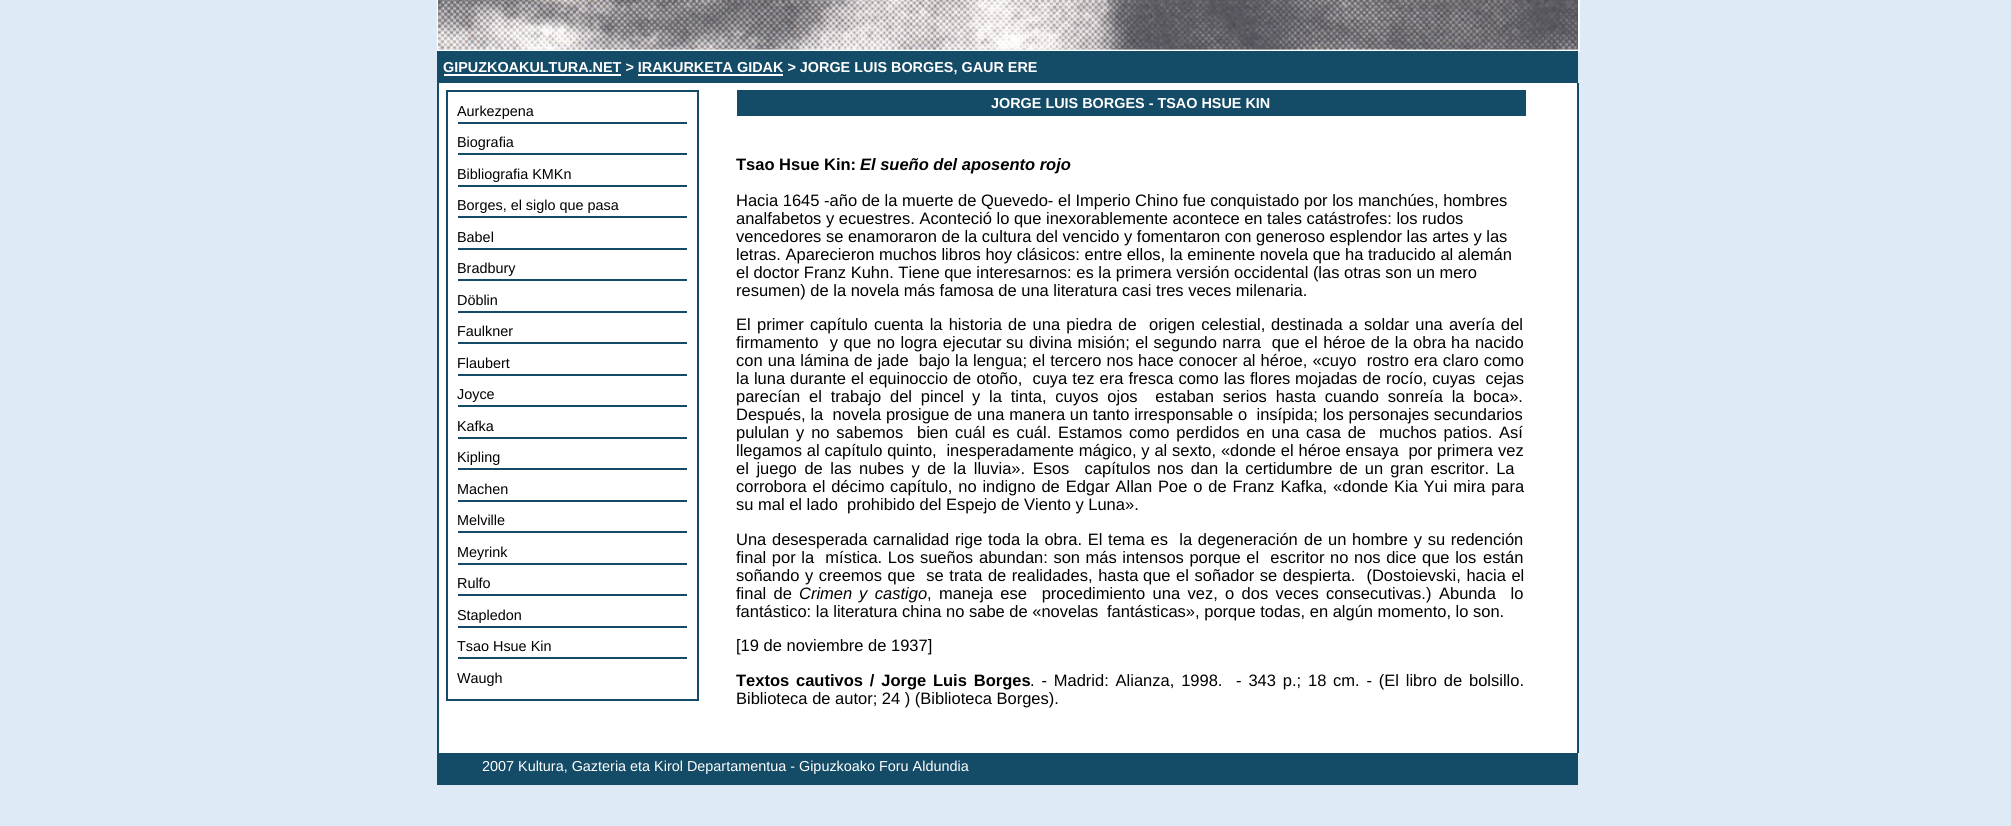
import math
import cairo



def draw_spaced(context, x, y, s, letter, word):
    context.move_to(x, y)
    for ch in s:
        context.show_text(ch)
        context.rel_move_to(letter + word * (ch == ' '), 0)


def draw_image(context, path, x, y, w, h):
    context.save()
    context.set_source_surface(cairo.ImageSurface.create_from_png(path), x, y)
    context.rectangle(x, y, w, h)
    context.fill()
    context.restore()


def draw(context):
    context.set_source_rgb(222 / 255, 234 / 255, 245 / 255)
    context.paint()
    context.set_source_rgb(1, 1, 1)
    context.rectangle(1578, 0, 2, 51)
    context.fill()
    context.rectangle(437, 50, 1143, 2)
    context.fill()
    context.rectangle(437, 0, 2, 51)
    context.fill()
    draw_image(context, "images/1.png", 438, 0, 1140, 50)
    context.set_source_rgb(20 / 255, 75 / 255, 102 / 255)
    context.rectangle(437, 51, 1141, 32)
    context.fill()
    context.set_source_rgb(1, 1, 1)
    context.rectangle(444, 74, 177, 2)
    context.fill()
    context.rectangle(638, 74, 145, 2)
    context.fill()
    context.rectangle(439, 83, 1138, 670)
    context.fill()
    context.set_source_rgb(20 / 255, 75 / 255, 102 / 255)
    context.rectangle(1577, 83, 2, 670)
    context.fill()
    context.rectangle(437, 83, 2, 670)
    context.fill()
    context.rectangle(737, 90, 789, 26)
    context.fill()
    context.rectangle(447, 91, 251, 609)
    context.stroke()
    context.rectangle(458, 122, 229, 2)
    context.fill()
    context.rectangle(458, 153, 229, 2)
    context.fill()
    context.rectangle(458, 185, 229, 2)
    context.fill()
    context.rectangle(458, 216, 229, 2)
    context.fill()
    context.rectangle(458, 248, 229, 2)
    context.fill()
    context.rectangle(458, 279, 229, 2)
    context.fill()
    context.rectangle(458, 311, 229, 2)
    context.fill()
    context.rectangle(458, 342, 229, 2)
    context.fill()
    context.rectangle(458, 374, 229, 2)
    context.fill()
    context.rectangle(458, 405, 229, 2)
    context.fill()
    context.rectangle(458, 437, 229, 2)
    context.fill()
    context.rectangle(458, 468, 229, 2)
    context.fill()
    context.rectangle(458, 500, 229, 2)
    context.fill()
    context.rectangle(458, 531, 229, 2)
    context.fill()
    context.rectangle(458, 563, 229, 2)
    context.fill()
    context.rectangle(458, 594, 229, 2)
    context.fill()
    context.rectangle(458, 626, 229, 2)
    context.fill()
    context.rectangle(458, 657, 229, 2)
    context.fill()
    context.rectangle(437, 753, 1141, 32)
    context.fill()
    context.select_font_face("Liberation Sans", cairo.FontSlant.NORMAL, cairo.FontWeight.BOLD)
    context.set_font_size(14.4)
    context.set_source_rgb(1, 1, 1)
    context.move_to(443, 72)
    context.show_text("GIPUZKOAKULTURA.NET > IRAKURKETA GIDAK > JORGE LUIS BORGES, GAUR ERE")
    context.move_to(991, 108)
    context.show_text("JORGE LUIS BORGES - TSAO HSUE KIN")
    context.select_font_face("Liberation Sans")
    context.set_source_rgb(0, 0, 0)
    context.move_to(457, 116)
    context.show_text("Aurkezpena")
    context.move_to(457, 147)
    context.show_text("Biografia")
    context.move_to(457, 179)
    context.show_text("Bibliografia KMKn")
    context.move_to(457, 210)
    context.show_text("Borges, el siglo que pasa")
    context.move_to(457, 242)
    context.show_text("Babel")
    context.move_to(457, 273)
    context.show_text("Bradbury")
    context.move_to(457, 305)
    context.show_text("Döblin")
    context.move_to(457, 336)
    context.show_text("Faulkner")
    context.move_to(457, 368)
    context.show_text("Flaubert")
    context.move_to(457, 399)
    context.show_text("Joyce")
    context.move_to(457, 431)
    context.show_text("Kafka")
    context.move_to(457, 462)
    context.show_text("Kipling")
    context.move_to(457, 494)
    context.show_text("Machen")
    context.move_to(457, 525)
    context.show_text("Melville")
    context.move_to(457, 557)
    context.show_text("Meyrink")
    context.move_to(457, 588)
    context.show_text("Rulfo")
    context.move_to(457, 620)
    context.show_text("Stapledon")
    context.move_to(457, 651)
    context.show_text("Tsao Hsue Kin")
    context.move_to(457, 683)
    context.show_text("Waugh")
    context.select_font_face("Liberation Sans", cairo.FontSlant.NORMAL, cairo.FontWeight.BOLD)
    context.set_font_size(16.5)
    context.move_to(736, 170)
    context.show_text("Tsao Hsue Kin:")
    context.select_font_face("Liberation Sans", cairo.FontSlant.ITALIC, cairo.FontWeight.BOLD)
    context.move_to(860, 170)
    context.show_text("El sueño del aposento rojo")
    context.select_font_face("Liberation Sans")
    context.move_to(736, 206)
    context.show_text("Hacia 1645 -año de la muerte de Quevedo- el Imperio Chino fue conquistado por los manchúes, hombres")
    context.move_to(736, 224)
    context.show_text("analfabetos y ecuestres. Aconteció lo que inexorablemente acontece en tales catástrofes: los rudos")
    context.move_to(736, 242)
    context.show_text("vencedores se enamoraron de la cultura del vencido y fomentaron con generoso esplendor las artes y las")
    context.move_to(736, 260)
    context.show_text("letras. Aparecieron muchos libros hoy clásicos: entre ellos, la eminente novela que ha traducido al alemán")
    context.move_to(736, 278)
    context.show_text("el doctor Franz Kuhn. Tiene que interesarnos: es la primera versión occidental (las otras son un mero")
    context.move_to(736, 296)
    context.show_text("resumen) de la novela más famosa de una literatura casi tres veces milenaria.")
    context.move_to(736, 330)
    context.show_text("El")
    draw_spaced(context, 757, 330, "primer capítulo cuenta la historia de una piedra de  origen celestial,", 0, 1.6)
    draw_spaced(context, 1271, 330, "destinada a soldar una avería del", 0, 1.6)
    draw_spaced(context, 736, 348, "firmamento  y que no logra ejecutar", 0, 1)
    draw_spaced(context, 1006, 348, "su divina misión; el segundo narra  que el héroe de la obra", 0, 0.9)
    draw_spaced(context, 1451, 348, "ha nacido", 0, 1)
    draw_spaced(context, 736, 366, "con una lámina de jade  bajo la lengua; el tercero nos", 0, 0.5)
    draw_spaced(context, 1138, 366, "hace conocer al héroe, «cuyo  rostro era claro como", 0, 0.5)
    draw_spaced(context, 736, 384, "la luna", 0, 0.5)
    draw_spaced(context, 790, 384, "durante el equinoccio de otoño,  cuya tez era fresca como las flores", 0, 0.5)
    draw_spaced(context, 1295, 384, "mojadas de rocío, cuyas  cejas", 0, 0.5)
    draw_spaced(context, 736, 402, "parecían el trabajo del pincel", 0, 4.25)
    draw_spaced(context, 972, 402, "y la tinta, cuyos ojos  estaban serios hasta cuando sonreía la boca».", 0, 4.25)
    draw_spaced(context, 736, 420, "Después, la  novela prosigue de una manera un tanto irresponsable o  insípida; los personajes secundarios", 0, 0.1)
    draw_spaced(context, 736, 438, "pululan y no sabemos", 0, 2.25)
    draw_spaced(context, 917, 438, "bien cuál es cuál. Estamos como perdidos en una casa de", 0, 2.25)
    draw_spaced(context, 1379, 438, "muchos patios. Así", 0, 2.25)
    draw_spaced(context, 736, 456, "llegamos al capítulo quinto,  inesperadamente mágico, y al sexto, «donde el héroe ensaya  por primera", 0, 0.25)
    context.move_to(1498, 456)
    context.show_text("vez")
    draw_spaced(context, 736, 474, "el juego de las nubes y de la lluvia». Esos  capítulos", 0, 3)
    draw_spaced(context, 1157, 474, "nos dan la certidumbre de un gran escritor. La", 0, 2.5)
    draw_spaced(context, 736, 492, "corrobora el décimo", 0, 1.25)
    draw_spaced(context, 890, 492, "capítulo, no indigno de Edgar Allan Poe o de Franz Kafka, «donde Kia Yui mira para", 0, 1.25)
    context.move_to(736, 510)
    context.show_text("su mal el lado")
    context.move_to(847, 510)
    context.show_text("prohibido del Espejo de Viento y Luna».")
    context.move_to(736, 545)
    context.show_text("Una")
    draw_spaced(context, 772, 545, "desesperada carnalidad rige toda la obra. El tema es  la degeneración", 0, 1.1)
    draw_spaced(context, 1304, 545, "de un hombre y su redención", 0, 1.1)
    draw_spaced(context, 736, 563, "final por la  mística. Los sueños", 0, 1)
    draw_spaced(context, 979, 563, "abundan: son más intensos porque el  escritor no nos dice que los", 0, 1)
    context.move_to(1483, 563)
    context.show_text("están")
    draw_spaced(context, 736, 581, "soñando y creemos que  se trata de realidades, hasta", 0, 1)
    draw_spaced(context, 1143, 581, "que el soñador se despierta.  (Dostoievski, hacia el", 0, 1)
    draw_spaced(context, 736, 599, "final de", 0, 2.75)
    context.select_font_face("Liberation Sans", cairo.FontSlant.ITALIC)
    context.move_to(799, 599)
    context.show_text("Crimen")
    draw_spaced(context, 859, 599, "y castigo", 0, 3)
    context.select_font_face("Liberation Sans")
    draw_spaced(context, 927, 599, ", maneja ese  procedimiento una vez, o dos veces consecutivas.)", 0, 2.75)
    draw_spaced(context, 1439, 599, "Abunda  lo", 0, 2.75)
    context.move_to(736, 617)
    context.show_text("fantástico: la literatura china no sabe de «novelas")
    context.move_to(1107, 617)
    context.show_text("fantásticas», porque todas, en algún momento, lo son.")
    context.move_to(736, 651)
    context.show_text("[19 de noviembre de 1937]")
    context.select_font_face("Liberation Sans", cairo.FontSlant.NORMAL, cairo.FontWeight.BOLD)
    context.move_to(736, 686)
    context.show_text("Textos")
    draw_spaced(context, 796, 686, "cautivos / Jorge Luis Borges", 0, 2.25)
    context.select_font_face("Liberation Sans")
    draw_spaced(context, 1030, 686, ". - Madrid: Alianza, 1998.  - 343 p.; 18", 0, 2.25)
    draw_spaced(context, 1333, 686, "cm. - (El libro de bolsillo.", 0, 2.25)
    context.move_to(736, 704)
    context.show_text("Biblioteca de autor; 24 ) (Biblioteca Borges).")
    context.set_font_size(14.4)
    context.set_source_rgb(1, 1, 1)
    context.move_to(482, 771)
    context.show_text("2007 Kultura, Gazteria eta Kirol Departamentua - Gipuzkoako Foru Aldundia")


surface = cairo.ImageSurface(cairo.Format.RGB24, 2011, 826)
context = cairo.Context(surface)
options = cairo.FontOptions()
options.set_hint_metrics(cairo.HintMetrics.OFF)
options.set_hint_style(cairo.HintStyle.NONE)
context.set_font_options(options)
context.set_miter_limit(4)
draw(context)
surface.write_to_png("out.png")
